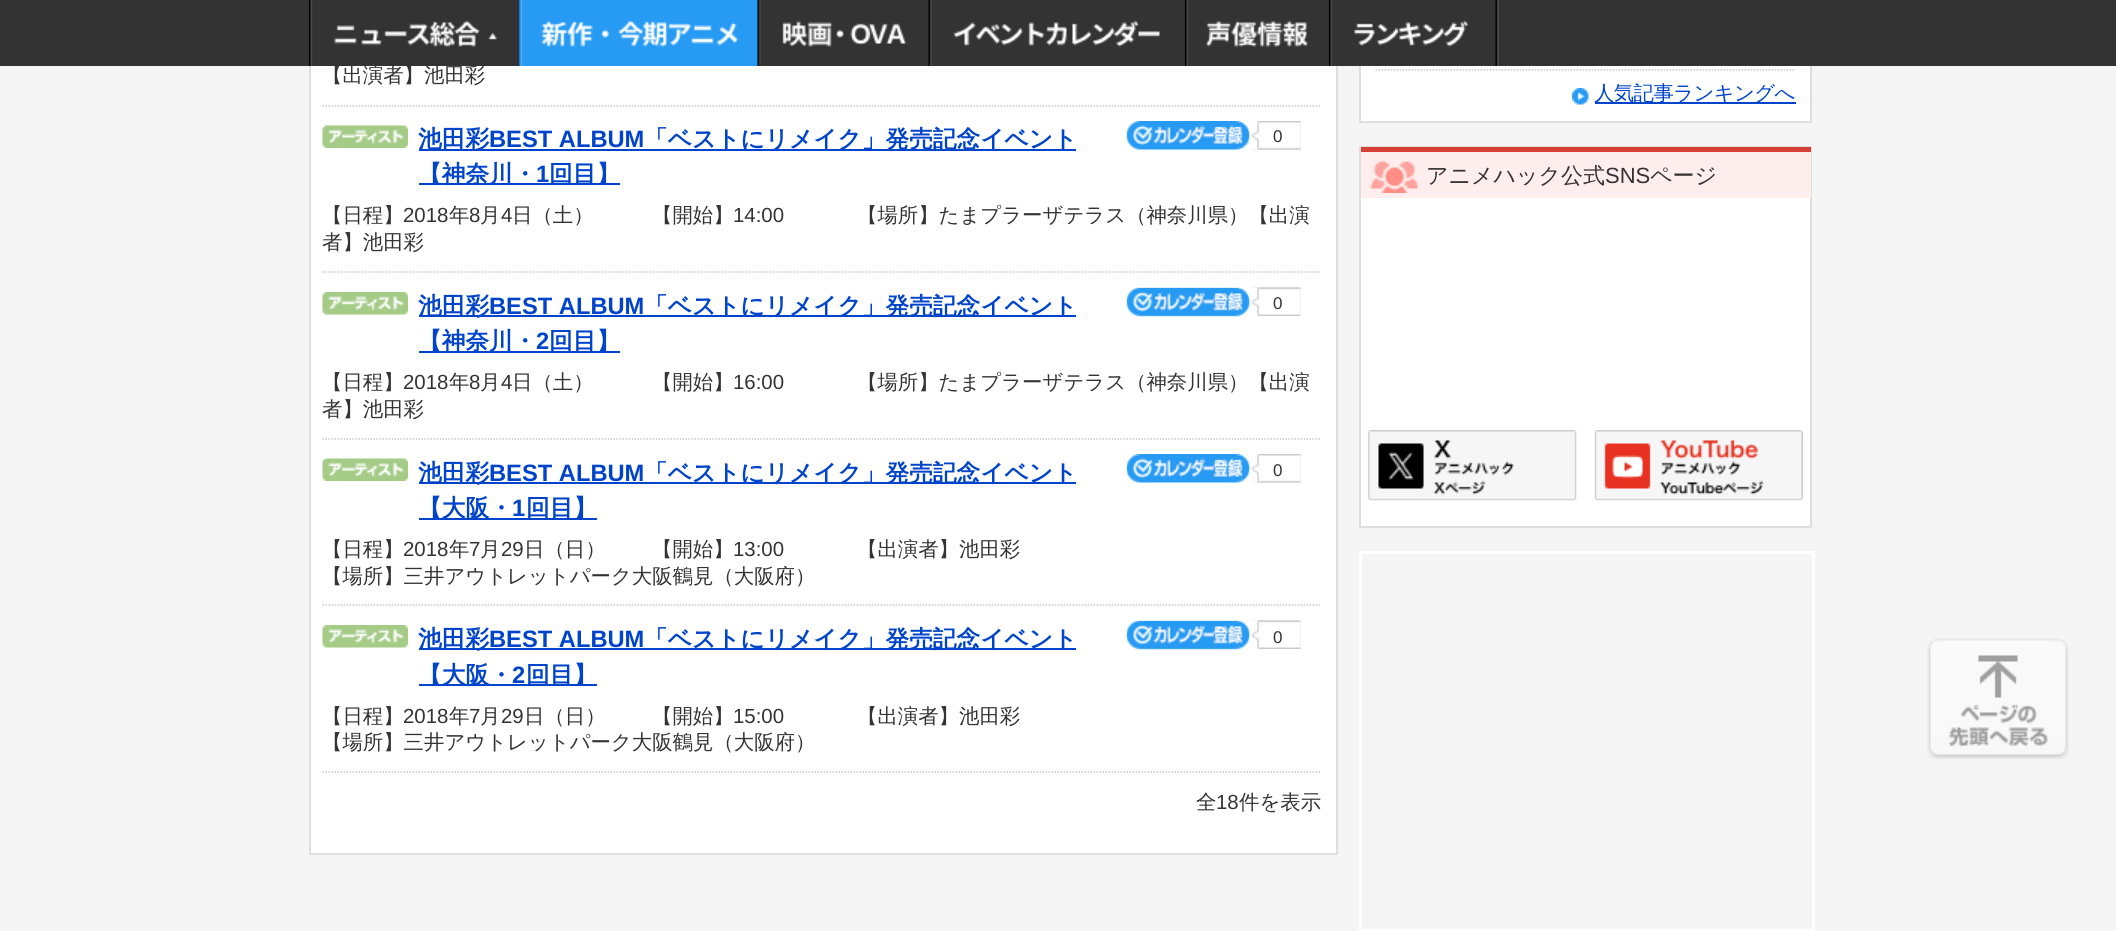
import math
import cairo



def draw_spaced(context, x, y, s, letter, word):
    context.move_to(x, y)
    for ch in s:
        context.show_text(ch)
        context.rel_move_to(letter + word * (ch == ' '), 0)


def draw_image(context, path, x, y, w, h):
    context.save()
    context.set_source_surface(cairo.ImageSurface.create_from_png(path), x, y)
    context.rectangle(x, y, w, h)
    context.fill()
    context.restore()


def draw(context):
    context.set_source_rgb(245 / 255, 245 / 255, 245 / 255)
    context.paint()
    context.set_source_rgb(1, 1, 1)
    context.rectangle(311, 66, 1025, 787)
    context.fill()
    context.rectangle(310, -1, 1027, 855)
    context.set_source_rgb(222 / 255, 222 / 255, 222 / 255)
    context.stroke()
    context.set_source_rgb(1, 1, 1)
    context.rectangle(1361, 66, 449, 55)
    context.fill()
    context.rectangle(1360, -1, 451, 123)
    context.set_source_rgb(222 / 255, 222 / 255, 222 / 255)
    context.stroke()
    context.set_source_rgb(51 / 255, 51 / 255, 51 / 255)
    context.rectangle(0, 0, 2116, 66)
    context.fill()
    draw_image(context, "images/2.png", 519, 0, 239, 66)
    draw_image(context, "images/3.png", 757, 0, 169, 66)
    draw_image(context, "images/4.png", 928, 0, 253, 66)
    draw_image(context, "images/5.png", 1185, 0, 124, 66)
    draw_image(context, "images/6.png", 1329, 0, 170, 66)
    context.new_path()
    context.move_to(322.5, 106)
    context.line_to(1321.5, 106)
    context.set_source_rgb(199 / 255, 199 / 255, 199 / 255)
    context.set_line_width(1.5)
    context.set_dash([1.5, 1.5])
    context.stroke()
    context.new_path()
    context.move_to(322.5, 272)
    context.line_to(1321.5, 272)
    context.stroke()
    draw_image(context, "images/7.png", 322, 125, 86, 23)
    context.set_source_rgb(0, 68 / 255, 204 / 255)
    context.rectangle(419, 149, 657, 2)
    context.fill()
    context.rectangle(419, 183, 201, 2)
    context.fill()
    draw_image(context, "images/8.png", 1126, 121, 124, 29)
    draw_image(context, "images/9.png", 1252, 121, 49, 29)
    draw_image(context, "images/10.png", 1251, 121, 50, 29)
    context.new_path()
    context.move_to(322.5, 439)
    context.line_to(1321.5, 439)
    context.set_source_rgb(199 / 255, 199 / 255, 199 / 255)
    context.stroke()
    draw_image(context, "images/11.png", 322, 292, 86, 23)
    context.set_source_rgb(0, 68 / 255, 204 / 255)
    context.rectangle(419, 315, 657, 2)
    context.fill()
    context.rectangle(419, 351, 201, 2)
    context.fill()
    draw_image(context, "images/12.png", 1126, 287, 124, 30)
    draw_image(context, "images/13.png", 1252, 287, 49, 29)
    draw_image(context, "images/14.png", 1251, 287, 50, 29)
    context.new_path()
    context.move_to(322.5, 605)
    context.line_to(1321.5, 605)
    context.set_source_rgb(199 / 255, 199 / 255, 199 / 255)
    context.stroke()
    draw_image(context, "images/7.png", 322, 458, 86, 23)
    context.set_source_rgb(0, 68 / 255, 204 / 255)
    context.rectangle(419, 482, 657, 2)
    context.fill()
    context.rectangle(419, 518, 178, 2)
    context.fill()
    draw_image(context, "images/8.png", 1126, 454, 124, 29)
    draw_image(context, "images/9.png", 1252, 454, 49, 29)
    draw_image(context, "images/10.png", 1251, 454, 50, 29)
    context.new_path()
    context.move_to(322.5, 772)
    context.line_to(1321.5, 772)
    context.set_source_rgb(199 / 255, 199 / 255, 199 / 255)
    context.stroke()
    draw_image(context, "images/11.png", 322, 625, 86, 23)
    context.set_source_rgb(0, 68 / 255, 204 / 255)
    context.rectangle(419, 648, 657, 2)
    context.fill()
    context.rectangle(419, 684, 178, 2)
    context.fill()
    draw_image(context, "images/12.png", 1126, 620, 124, 30)
    draw_image(context, "images/13.png", 1252, 620, 49, 29)
    draw_image(context, "images/14.png", 1251, 620, 50, 29)
    context.new_path()
    context.move_to(1375.5, 70)
    context.line_to(1795.5, 70)
    context.set_source_rgb(199 / 255, 199 / 255, 199 / 255)
    context.stroke()
    draw_image(context, "images/15.png", 1572, 88, 17, 17)
    context.set_source_rgb(0, 68 / 255, 204 / 255)
    context.rectangle(1595, 102, 201, 2)
    context.fill()
    context.set_source_rgb(1, 1, 1)
    context.rectangle(1361, 198, 449, 328)
    context.fill()
    context.rectangle(1360, 147, 451, 380)
    context.set_source_rgb(222 / 255, 222 / 255, 222 / 255)
    context.set_line_width(2)
    context.set_dash([])
    context.stroke()
    context.set_source_rgb(1, 238 / 255, 237 / 255)
    context.rectangle(1361, 152, 450, 46)
    context.fill()
    context.set_source_rgb(213 / 255, 65 / 255, 55 / 255)
    context.rectangle(1361, 147, 450, 5)
    context.fill()
    draw_image(context, "images/16.png", 1370, 161, 48, 32)
    draw_image(context, "images/17.png", 1368, 430, 209, 71)
    draw_image(context, "images/18.png", 1594, 430, 209, 71)
    context.rectangle(1360.5, 552.5, 453, 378)
    context.set_source_rgb(1, 1, 1)
    context.set_line_width(3)
    context.stroke()
    draw_image(context, "images/19.png", 1927, 638, 142, 121)
    context.select_font_face("WenQuanYi Zen Hei Medium")
    context.set_font_size(20.4)
    context.set_source_rgb(51 / 255, 51 / 255, 51 / 255)
    context.move_to(322, 82)
    context.show_text("【出演者】池田彩")
    draw_image(context, "images/1.png", 309, 0, 188, 66)
    context.select_font_face("WenQuanYi Zen Hei", cairo.FontSlant.NORMAL, cairo.FontWeight.BOLD)
    context.set_font_size(23.7)
    context.set_source_rgb(0, 68 / 255, 204 / 255)
    context.move_to(418, 147)
    context.show_text("池田彩")
    context.select_font_face("Liberation Sans", cairo.FontSlant.NORMAL, cairo.FontWeight.BOLD)
    context.move_to(489, 147)
    context.show_text("BEST ALBUM")
    context.select_font_face("WenQuanYi Zen Hei", cairo.FontSlant.NORMAL, cairo.FontWeight.BOLD)
    context.move_to(644, 147)
    context.show_text("「ベストにリメイク」発売記念イベント")
    context.move_to(418, 182)
    context.show_text("【神奈川・")
    context.select_font_face("Liberation Sans", cairo.FontSlant.NORMAL, cairo.FontWeight.BOLD)
    context.move_to(536, 182)
    context.show_text("1")
    context.select_font_face("WenQuanYi Zen Hei", cairo.FontSlant.NORMAL, cairo.FontWeight.BOLD)
    context.move_to(549, 182)
    context.show_text("回目】")
    context.select_font_face("Liberation Sans")
    context.set_font_size(17)
    context.set_source_rgb(51 / 255, 51 / 255, 51 / 255)
    context.move_to(1273, 142)
    context.show_text("0")
    context.select_font_face("WenQuanYi Zen Hei Medium")
    context.set_font_size(20.4)
    context.move_to(322, 222)
    context.show_text("【日程】")
    context.select_font_face("Liberation Sans")
    context.move_to(403, 222)
    context.show_text("2018")
    context.select_font_face("WenQuanYi Zen Hei Medium")
    context.move_to(449, 222)
    context.show_text("年")
    context.select_font_face("Liberation Sans")
    context.move_to(469, 222)
    context.show_text("8")
    context.select_font_face("WenQuanYi Zen Hei Medium")
    context.move_to(480, 222)
    context.show_text("月")
    context.select_font_face("Liberation Sans")
    context.move_to(501, 222)
    context.show_text("4")
    context.select_font_face("WenQuanYi Zen Hei Medium")
    context.move_to(512, 222)
    context.show_text("日（土）")
    context.move_to(652, 222)
    context.show_text("【開始】")
    context.select_font_face("Liberation Sans")
    context.move_to(733, 222)
    context.show_text("14:00")
    context.select_font_face("WenQuanYi Zen Hei Medium")
    context.move_to(857, 222)
    context.show_text("【場所】たまプラーザテラス（神奈川県）【出演")
    context.move_to(322, 249)
    context.show_text("者】池田彩")
    context.select_font_face("WenQuanYi Zen Hei", cairo.FontSlant.NORMAL, cairo.FontWeight.BOLD)
    context.set_font_size(23.7)
    context.set_source_rgb(0, 68 / 255, 204 / 255)
    context.move_to(418, 314)
    context.show_text("池田彩")
    context.select_font_face("Liberation Sans", cairo.FontSlant.NORMAL, cairo.FontWeight.BOLD)
    context.move_to(489, 314)
    context.show_text("BEST ALBUM")
    context.select_font_face("WenQuanYi Zen Hei", cairo.FontSlant.NORMAL, cairo.FontWeight.BOLD)
    context.move_to(644, 314)
    context.show_text("「ベストにリメイク」発売記念イベント")
    context.move_to(418, 349)
    context.show_text("【神奈川・")
    context.select_font_face("Liberation Sans", cairo.FontSlant.NORMAL, cairo.FontWeight.BOLD)
    context.move_to(536, 349)
    context.show_text("2")
    context.select_font_face("WenQuanYi Zen Hei", cairo.FontSlant.NORMAL, cairo.FontWeight.BOLD)
    context.move_to(549, 349)
    context.show_text("回目】")
    context.select_font_face("Liberation Sans")
    context.set_font_size(17)
    context.set_source_rgb(51 / 255, 51 / 255, 51 / 255)
    context.move_to(1273, 309)
    context.show_text("0")
    context.select_font_face("WenQuanYi Zen Hei Medium")
    context.set_font_size(20.4)
    context.move_to(322, 389)
    context.show_text("【日程】")
    context.select_font_face("Liberation Sans")
    context.move_to(403, 389)
    context.show_text("2018")
    context.select_font_face("WenQuanYi Zen Hei Medium")
    context.move_to(449, 389)
    context.show_text("年")
    context.select_font_face("Liberation Sans")
    context.move_to(469, 389)
    context.show_text("8")
    context.select_font_face("WenQuanYi Zen Hei Medium")
    context.move_to(480, 389)
    context.show_text("月")
    context.select_font_face("Liberation Sans")
    context.move_to(501, 389)
    context.show_text("4")
    context.select_font_face("WenQuanYi Zen Hei Medium")
    context.move_to(512, 389)
    context.show_text("日（土）")
    context.move_to(652, 389)
    context.show_text("【開始】")
    context.select_font_face("Liberation Sans")
    context.move_to(733, 389)
    context.show_text("16:00")
    context.select_font_face("WenQuanYi Zen Hei Medium")
    context.move_to(857, 389)
    context.show_text("【場所】たまプラーザテラス（神奈川県）【出演")
    context.move_to(322, 416)
    context.show_text("者】池田彩")
    context.select_font_face("WenQuanYi Zen Hei", cairo.FontSlant.NORMAL, cairo.FontWeight.BOLD)
    context.set_font_size(23.7)
    context.set_source_rgb(0, 68 / 255, 204 / 255)
    context.move_to(418, 481)
    context.show_text("池田彩")
    context.select_font_face("Liberation Sans", cairo.FontSlant.NORMAL, cairo.FontWeight.BOLD)
    context.move_to(489, 481)
    context.show_text("BEST ALBUM")
    context.select_font_face("WenQuanYi Zen Hei", cairo.FontSlant.NORMAL, cairo.FontWeight.BOLD)
    context.move_to(644, 481)
    context.show_text("「ベストにリメイク」発売記念イベント")
    context.move_to(418, 516)
    context.show_text("【大阪・")
    context.select_font_face("Liberation Sans", cairo.FontSlant.NORMAL, cairo.FontWeight.BOLD)
    context.move_to(512, 516)
    context.show_text("1")
    context.select_font_face("WenQuanYi Zen Hei", cairo.FontSlant.NORMAL, cairo.FontWeight.BOLD)
    context.move_to(526, 516)
    context.show_text("回目】")
    context.select_font_face("Liberation Sans")
    context.set_font_size(17)
    context.set_source_rgb(51 / 255, 51 / 255, 51 / 255)
    context.move_to(1273, 476)
    context.show_text("0")
    context.select_font_face("WenQuanYi Zen Hei Medium")
    context.set_font_size(20.4)
    context.move_to(322, 556)
    context.show_text("【日程】")
    context.select_font_face("Liberation Sans")
    context.move_to(403, 556)
    context.show_text("2018")
    context.select_font_face("WenQuanYi Zen Hei Medium")
    context.move_to(449, 556)
    context.show_text("年")
    context.select_font_face("Liberation Sans")
    context.move_to(469, 556)
    context.show_text("7")
    context.select_font_face("WenQuanYi Zen Hei Medium")
    context.move_to(480, 556)
    context.show_text("月")
    context.select_font_face("Liberation Sans")
    context.move_to(501, 556)
    context.show_text("29")
    context.select_font_face("WenQuanYi Zen Hei Medium")
    context.move_to(524, 556)
    context.show_text("日（日）")
    context.move_to(652, 556)
    context.show_text("【開始】")
    context.select_font_face("Liberation Sans")
    context.move_to(733, 556)
    context.show_text("13:00")
    context.select_font_face("WenQuanYi Zen Hei Medium")
    context.move_to(857, 556)
    context.show_text("【出演者】池田彩")
    context.move_to(322, 583)
    context.show_text("【場所】三井アウトレットパーク大阪鶴見（大阪府）")
    context.select_font_face("WenQuanYi Zen Hei", cairo.FontSlant.NORMAL, cairo.FontWeight.BOLD)
    context.set_font_size(23.7)
    context.set_source_rgb(0, 68 / 255, 204 / 255)
    context.move_to(418, 647)
    context.show_text("池田彩")
    context.select_font_face("Liberation Sans", cairo.FontSlant.NORMAL, cairo.FontWeight.BOLD)
    context.move_to(489, 647)
    context.show_text("BEST ALBUM")
    context.select_font_face("WenQuanYi Zen Hei", cairo.FontSlant.NORMAL, cairo.FontWeight.BOLD)
    context.move_to(644, 647)
    context.show_text("「ベストにリメイク」発売記念イベント")
    context.move_to(418, 683)
    context.show_text("【大阪・")
    context.select_font_face("Liberation Sans", cairo.FontSlant.NORMAL, cairo.FontWeight.BOLD)
    context.move_to(512, 683)
    context.show_text("2")
    context.select_font_face("WenQuanYi Zen Hei", cairo.FontSlant.NORMAL, cairo.FontWeight.BOLD)
    context.move_to(526, 683)
    context.show_text("回目】")
    context.select_font_face("Liberation Sans")
    context.set_font_size(17)
    context.set_source_rgb(51 / 255, 51 / 255, 51 / 255)
    context.move_to(1273, 643)
    context.show_text("0")
    context.select_font_face("WenQuanYi Zen Hei Medium")
    context.set_font_size(20.4)
    context.move_to(322, 723)
    context.show_text("【日程】")
    context.select_font_face("Liberation Sans")
    context.move_to(403, 723)
    context.show_text("2018")
    context.select_font_face("WenQuanYi Zen Hei Medium")
    context.move_to(449, 723)
    context.show_text("年")
    context.select_font_face("Liberation Sans")
    context.move_to(469, 723)
    context.show_text("7")
    context.select_font_face("WenQuanYi Zen Hei Medium")
    context.move_to(480, 723)
    context.show_text("月")
    context.select_font_face("Liberation Sans")
    context.move_to(501, 723)
    context.show_text("29")
    context.select_font_face("WenQuanYi Zen Hei Medium")
    context.move_to(524, 723)
    context.show_text("日（日）")
    context.move_to(652, 723)
    context.show_text("【開始】")
    context.select_font_face("Liberation Sans")
    context.move_to(733, 723)
    context.show_text("15:00")
    context.select_font_face("WenQuanYi Zen Hei Medium")
    context.move_to(857, 723)
    context.show_text("【出演者】池田彩")
    context.move_to(322, 749)
    context.show_text("【場所】三井アウトレットパーク大阪鶴見（大阪府）")
    context.move_to(1196, 809)
    context.show_text("全")
    context.select_font_face("Liberation Sans")
    context.move_to(1216, 809)
    context.show_text("18")
    context.select_font_face("WenQuanYi Zen Hei Medium")
    context.move_to(1239, 809)
    context.show_text("件を表示")
    context.set_source_rgb(0, 68 / 255, 204 / 255)
    draw_spaced(context, 1594, 100, "人気記事ランキングへ", -0.6, 0)
    context.set_font_size(22)
    context.set_source_rgb(51 / 255, 51 / 255, 51 / 255)
    context.move_to(1426, 183)
    context.show_text("アニメハック公式")
    context.select_font_face("Liberation Sans")
    context.move_to(1605, 183)
    context.show_text("SNS")
    context.select_font_face("WenQuanYi Zen Hei Medium")
    context.move_to(1650, 183)
    context.show_text("ページ")


surface = cairo.ImageSurface(cairo.Format.RGB24, 2116, 931)
context = cairo.Context(surface)
options = cairo.FontOptions()
options.set_hint_metrics(cairo.HintMetrics.OFF)
options.set_hint_style(cairo.HintStyle.NONE)
context.set_font_options(options)
context.set_miter_limit(4)
draw(context)
surface.write_to_png("out.png")
